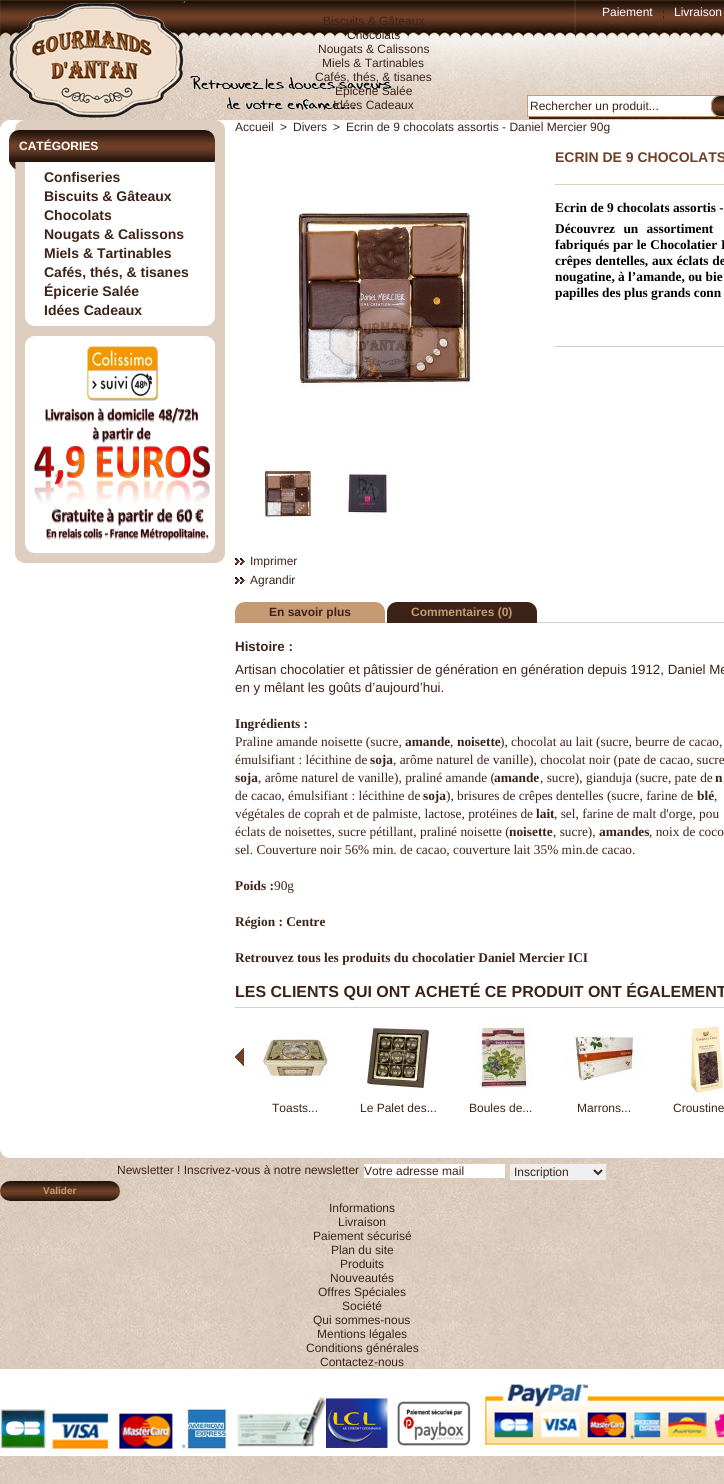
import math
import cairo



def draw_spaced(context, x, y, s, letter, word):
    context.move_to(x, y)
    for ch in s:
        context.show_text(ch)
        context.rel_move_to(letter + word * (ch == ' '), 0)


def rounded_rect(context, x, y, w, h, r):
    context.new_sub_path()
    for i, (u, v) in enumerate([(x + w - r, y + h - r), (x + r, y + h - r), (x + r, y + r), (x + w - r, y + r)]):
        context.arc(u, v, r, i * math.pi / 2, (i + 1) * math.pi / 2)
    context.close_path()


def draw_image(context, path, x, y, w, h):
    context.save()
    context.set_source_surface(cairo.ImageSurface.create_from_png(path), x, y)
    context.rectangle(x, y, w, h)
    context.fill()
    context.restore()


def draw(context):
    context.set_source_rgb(1, 1, 1)
    context.paint()
    draw_image(context, "images/1.png", 0, 0, 724, 1484)
    draw_image(context, "images/2.png", 46, 0, 678, 115)
    draw_image(context, "images/4.png", 0, 0, 724, 38)
    draw_image(context, "images/3.png", 9, 1, 383, 119)
    context.new_path()
    context.move_to(663.5, 5)
    context.line_to(663.5, 8)
    context.move_to(663.5, 10.5)
    context.line_to(663.5, 13.5)
    context.move_to(663.5, 16)
    context.line_to(663.5, 19)
    context.set_source_rgb(61 / 255, 35 / 255, 23 / 255)
    context.set_line_width(1)
    context.stroke()
    context.new_path()
    context.move_to(529, 117)
    context.line_to(529, 119)
    context.line_to(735, 119)
    context.line_to(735, 97)
    context.line_to(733, 97)
    context.line_to(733, 117)
    context.close_path()
    context.fill()
    context.set_source_rgb(1, 1, 1)
    context.rectangle(528, 96, 189, 20)
    context.fill()
    context.rectangle(527.5, 95.5, 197, 21)
    context.set_source_rgb(198 / 255, 154 / 255, 114 / 255)
    context.stroke()
    context.set_source_rgb(61 / 255, 35 / 255, 23 / 255)
    context.new_path()
    context.move_to(715, 115)
    context.curve_to(717, 117.5, 719.5, 119, 723, 119)
    context.line_to(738, 119)
    context.curve_to(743.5, 119, 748, 114.5, 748, 109)
    context.line_to(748, 107)
    context.curve_to(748, 103.5, 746.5, 101, 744, 99)
    context.curve_to(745.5, 101, 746, 103.5, 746, 106)
    context.curve_to(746, 111, 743.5, 115.5, 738, 117)
    context.line_to(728.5, 117)
    context.curve_to(724, 117, 719, 118, 715, 115)
    context.close_path()
    context.fill()
    draw_image(context, "images/5.png", 711, 95, 13, 22)
    rounded_rect(context, 711.5, 95.5, 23, 21, 9.5)
    context.set_source_rgb(198 / 255, 154 / 255, 114 / 255)
    context.stroke()
    context.set_source_rgb(1, 1, 1)
    rounded_rect(context, 0, 120, 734, 1038, 10)
    context.fill()
    context.set_source_rgb(222 / 255, 206 / 255, 191 / 255)
    rounded_rect(context, 15, 120, 210, 443, 10)
    context.fill()
    context.set_source_rgb(1, 1, 1)
    rounded_rect(context, 25, 130, 190, 196, 10)
    context.fill()
    draw_image(context, "images/6.png", 9, 130, 206, 40)
    rounded_rect(context, 25, 336, 190, 217, 10)
    context.fill()
    draw_image(context, "images/7.png", 34, 343, 181, 199)
    context.set_source_rgb(222 / 255, 206 / 255, 191 / 255)
    context.rectangle(555, 184, 169, 1)
    context.fill()
    context.rectangle(555, 346, 169, 1)
    context.fill()
    draw_image(context, "images/8.png", 294, 212, 181, 177)
    draw_image(context, "images/9.png", 264, 470, 48, 48)
    draw_image(context, "images/10.png", 344, 470, 48, 48)
    draw_image(context, "images/11.png", 235, 558, 10, 7)
    draw_image(context, "images/11.png", 235, 577, 10, 7)
    context.rectangle(385, 622, 339, 1)
    context.fill()
    context.set_source_rgb(198 / 255, 154 / 255, 114 / 255)
    context.new_path()
    context.move_to(245, 602)
    context.line_to(375, 602)
    context.curve_to(380.5, 602, 385, 606.5, 385, 612)
    context.line_to(385, 623)
    context.line_to(235, 623)
    context.line_to(235, 612)
    context.curve_to(235, 606.5, 239.5, 602, 245, 602)
    context.close_path()
    context.fill()
    context.set_source_rgb(61 / 255, 35 / 255, 23 / 255)
    context.new_path()
    context.move_to(397, 602)
    context.line_to(527, 602)
    context.curve_to(532.5, 602, 537, 606.5, 537, 612)
    context.line_to(537, 623)
    context.line_to(387, 623)
    context.line_to(387, 612)
    context.curve_to(387, 606.5, 391.5, 602, 397, 602)
    context.close_path()
    context.fill()
    context.set_source_rgb(222 / 255, 206 / 255, 191 / 255)
    context.rectangle(235, 1007, 489, 1)
    context.fill()
    draw_image(context, "images/12.png", 235, 1048, 9, 18)
    draw_image(context, "images/13.png", 257, 1034, 75, 48)
    draw_image(context, "images/14.png", 366, 1026, 64, 64)
    draw_image(context, "images/15.png", 477, 1018, 56, 72)
    draw_image(context, "images/16.png", 564, 1034, 80, 48)
    draw_image(context, "images/17.png", 683, 1018, 41, 80)
    context.set_source_rgb(1, 1, 1)
    context.rectangle(363.5, 1163.5, 142, 15)
    context.fill_preserve()
    context.set_source_rgb(222 / 255, 206 / 255, 191 / 255)
    context.stroke()
    context.set_source_rgb(239 / 255, 239 / 255, 239 / 255)
    context.rectangle(509.5, 1163.5, 97, 17)
    context.fill_preserve()
    context.set_source_rgb(222 / 255, 206 / 255, 191 / 255)
    context.stroke()
    context.new_path()
    context.move_to(594, 1170)
    context.line_to(598, 1174)
    context.line_to(602, 1170)
    context.set_source_rgb(61 / 255, 35 / 255, 23 / 255)
    context.set_line_width(2)
    context.stroke()
    draw_image(context, "images/18.png", 0, 1181, 120, 20)
    draw_image(context, "images/19.png", 0, 1369, 724, 87)
    context.select_font_face("Liberation Sans")
    context.set_font_size(12)
    context.set_source_rgb(1, 1, 1)
    context.move_to(602, 16)
    context.show_text("Paiement")
    context.move_to(674, 16)
    context.show_text("Livraison")
    context.set_source_rgb(61 / 255, 35 / 255, 23 / 255)
    context.move_to(323, 25)
    context.show_text("Biscuits & Gâteaux")
    context.move_to(347, 39)
    context.show_text("Chocolats")
    context.move_to(318, 53)
    context.show_text("Nougats & Calissons")
    context.move_to(322, 67)
    context.show_text("Miels & Tartinables")
    context.move_to(315, 81)
    context.show_text("Cafés, thés, & tisanes")
    context.move_to(335, 95)
    context.show_text("Épicerie Salée")
    context.move_to(333, 109)
    context.show_text("Idées Cadeaux")
    context.move_to(530, 110)
    context.show_text("Rechercher un produit...")
    context.select_font_face("Liberation Sans", cairo.FontSlant.NORMAL, cairo.FontWeight.BOLD)
    context.set_source_rgb(1, 1, 1)
    context.move_to(19, 150)
    context.show_text("CATÉGORIES")
    context.set_font_size(14)
    context.set_source_rgb(61 / 255, 35 / 255, 23 / 255)
    context.move_to(44, 182)
    context.show_text("Confiseries")
    context.move_to(44, 201)
    context.show_text("Biscuits & Gâteaux")
    context.move_to(44, 220)
    context.show_text("Chocolats")
    context.move_to(44, 239)
    context.show_text("Nougats & Calissons")
    context.move_to(44, 258)
    context.show_text("Miels & Tartinables")
    context.move_to(44, 277)
    context.show_text("Cafés, thés, & tisanes")
    context.move_to(44, 296)
    context.show_text("Épicerie Salée")
    context.move_to(44, 315)
    context.show_text("Idées Cadeaux")
    context.select_font_face("Liberation Sans")
    context.set_font_size(12)
    context.move_to(235, 131)
    context.show_text("Accueil")
    context.move_to(280, 131)
    context.show_text(">")
    context.move_to(293, 131)
    context.show_text("Divers")
    context.move_to(333, 131)
    context.show_text(">")
    context.move_to(346, 131)
    context.show_text("Ecrin de 9 chocolats assortis - Daniel Mercier 90g")
    context.select_font_face("Liberation Sans", cairo.FontSlant.NORMAL, cairo.FontWeight.BOLD)
    context.set_font_size(14)
    context.set_source_rgb(111 / 255, 63 / 255, 40 / 255)
    context.move_to(555, 162)
    context.show_text("ECRIN DE 9 CHOCOLATS")
    context.select_font_face("Liberation Serif", cairo.FontSlant.NORMAL, cairo.FontWeight.BOLD)
    context.set_font_size(13.35)
    context.set_source_rgb(0, 0, 0)
    context.move_to(555, 212)
    context.show_text("Ecrin de 9 chocolats assortis -")
    draw_spaced(context, 555, 233, "Découvrez un assortiment", 0, 5)
    draw_spaced(context, 555, 249, "fabriqués par le Chocolatier D", 0, 0.5)
    draw_spaced(context, 555, 265, "crêpes dentelles, aux éclats de", 0, 0.5)
    context.move_to(555, 281)
    context.show_text("nougatine, à l’amande, ou bie")
    context.move_to(555, 297)
    context.show_text("papilles des plus grands conn")
    context.select_font_face("Liberation Sans")
    context.set_font_size(12)
    context.set_source_rgb(61 / 255, 35 / 255, 23 / 255)
    context.move_to(250, 565)
    context.show_text("Imprimer")
    context.move_to(250, 584)
    context.show_text("Agrandir")
    context.select_font_face("Liberation Sans", cairo.FontSlant.NORMAL, cairo.FontWeight.BOLD)
    context.move_to(269, 616)
    context.show_text("En savoir plus")
    context.set_source_rgb(198 / 255, 154 / 255, 114 / 255)
    context.move_to(411, 616)
    context.show_text("Commentaires (0)")
    context.set_font_size(13.35)
    context.set_source_rgb(61 / 255, 35 / 255, 23 / 255)
    context.move_to(235, 651)
    context.show_text("Histoire :")
    context.select_font_face("Liberation Sans")
    context.move_to(235, 674)
    context.show_text("Artisan chocolatier et pâtissier de génération en génération depuis 1912, Daniel Me")
    context.move_to(235, 692)
    context.show_text("en y mêlant les goûts d’aujourd’hui.")
    context.select_font_face("Liberation Serif", cairo.FontSlant.NORMAL, cairo.FontWeight.BOLD)
    context.move_to(235, 728)
    context.show_text("Ingrédients :")
    context.select_font_face("Liberation Serif")
    context.move_to(235, 746)
    context.show_text("Praline amande noisette (sucre,")
    context.select_font_face("Liberation Serif", cairo.FontSlant.NORMAL, cairo.FontWeight.BOLD)
    context.move_to(405, 746)
    context.show_text("amande")
    context.select_font_face("Liberation Serif")
    context.move_to(450, 746)
    context.show_text(",")
    context.select_font_face("Liberation Serif", cairo.FontSlant.NORMAL, cairo.FontWeight.BOLD)
    context.move_to(457, 746)
    context.show_text("noisette")
    context.select_font_face("Liberation Serif")
    context.move_to(500, 746)
    context.show_text("), chocolat au lait (sucre, beurre de cacao,")
    context.move_to(235, 764)
    context.show_text("émulsifiant : lécithine de")
    context.select_font_face("Liberation Serif", cairo.FontSlant.NORMAL, cairo.FontWeight.BOLD)
    context.move_to(370, 764)
    context.show_text("soja")
    context.select_font_face("Liberation Serif")
    context.move_to(393, 764)
    context.show_text(", arôme naturel de vanille), chocolat noir (pate de cacao, sucre")
    context.select_font_face("Liberation Serif", cairo.FontSlant.NORMAL, cairo.FontWeight.BOLD)
    context.move_to(235, 782)
    context.show_text("soja")
    context.select_font_face("Liberation Serif")
    context.move_to(258, 782)
    context.show_text(", arôme naturel de vanille), praliné amande (")
    context.select_font_face("Liberation Serif", cairo.FontSlant.NORMAL, cairo.FontWeight.BOLD)
    context.move_to(494, 782)
    context.show_text("amande")
    context.select_font_face("Liberation Serif")
    context.move_to(540, 782)
    context.show_text(", sucre), gianduja (sucre, pate de")
    context.select_font_face("Liberation Serif", cairo.FontSlant.NORMAL, cairo.FontWeight.BOLD)
    context.move_to(715, 782)
    context.show_text("n")
    context.select_font_face("Liberation Serif")
    context.move_to(235, 800)
    context.show_text("de cacao, émulsifiant : lécithine de")
    context.select_font_face("Liberation Serif", cairo.FontSlant.NORMAL, cairo.FontWeight.BOLD)
    context.move_to(423, 800)
    context.show_text("soja")
    context.select_font_face("Liberation Serif")
    context.move_to(446, 800)
    context.show_text("), brisures de crêpes dentelles (sucre, farine de")
    context.select_font_face("Liberation Serif", cairo.FontSlant.NORMAL, cairo.FontWeight.BOLD)
    context.move_to(697, 800)
    context.show_text("blé")
    context.select_font_face("Liberation Serif")
    context.move_to(714, 800)
    context.show_text(",")
    context.move_to(235, 818)
    context.show_text("végétales de coprah et de palmiste, lactose, protéines de")
    context.select_font_face("Liberation Serif", cairo.FontSlant.NORMAL, cairo.FontWeight.BOLD)
    context.move_to(536, 818)
    context.show_text("lait")
    context.select_font_face("Liberation Serif")
    context.move_to(554, 818)
    context.show_text(", sel, farine de malt d'orge, pou")
    context.move_to(235, 836)
    context.show_text("éclats de noisettes, sucre pétillant, praliné noisette (")
    context.select_font_face("Liberation Serif", cairo.FontSlant.NORMAL, cairo.FontWeight.BOLD)
    context.move_to(509, 836)
    context.show_text("noisette")
    context.select_font_face("Liberation Serif")
    context.move_to(553, 836)
    context.show_text(", sucre),")
    context.select_font_face("Liberation Serif", cairo.FontSlant.NORMAL, cairo.FontWeight.BOLD)
    context.move_to(599, 836)
    context.show_text("amandes")
    context.select_font_face("Liberation Serif")
    context.move_to(649, 836)
    context.show_text(", noix de coco")
    context.move_to(235, 854)
    context.show_text("sel. Couverture noir 56% min. de cacao, couverture lait 35% min.de cacao.")
    context.select_font_face("Liberation Serif", cairo.FontSlant.NORMAL, cairo.FontWeight.BOLD)
    context.move_to(235, 890)
    context.show_text("Poids :")
    context.select_font_face("Liberation Serif")
    context.move_to(274, 890)
    context.show_text("90g")
    context.select_font_face("Liberation Serif", cairo.FontSlant.NORMAL, cairo.FontWeight.BOLD)
    context.move_to(235, 926)
    context.show_text("Région : Centre")
    context.move_to(235, 962)
    context.show_text("Retrouvez tous les produits du chocolatier Daniel Mercier ICI")
    context.select_font_face("Liberation Sans", cairo.FontSlant.NORMAL, cairo.FontWeight.BOLD)
    context.set_font_size(16)
    context.move_to(235, 997)
    context.show_text("LES CLIENTS QUI ONT ACHETÉ CE PRODUIT ONT ÉGALEMENT")
    context.select_font_face("Liberation Sans")
    context.set_font_size(12)
    context.move_to(272, 1112)
    context.show_text("Toasts...")
    context.move_to(360, 1112)
    context.show_text("Le Palet des...")
    context.move_to(469, 1112)
    context.show_text("Boules de...")
    context.move_to(577, 1112)
    context.show_text("Marrons...")
    context.move_to(673, 1112)
    context.show_text("Croustine")
    context.move_to(117, 1174)
    context.show_text("Newsletter ! Inscrivez-vous à notre newsletter")
    context.move_to(364, 1175)
    context.show_text("Votre adresse mail")
    context.move_to(514, 1176)
    context.show_text("Inscription")
    context.select_font_face("Liberation Sans", cairo.FontSlant.NORMAL, cairo.FontWeight.BOLD)
    context.set_font_size(10)
    context.set_source_rgb(198 / 255, 154 / 255, 114 / 255)
    context.move_to(43, 1194)
    context.show_text("Valider")
    context.select_font_face("Liberation Sans")
    context.set_font_size(12)
    context.set_source_rgb(61 / 255, 35 / 255, 23 / 255)
    context.move_to(329, 1212)
    context.show_text("Informations")
    context.move_to(338, 1226)
    context.show_text("Livraison")
    context.move_to(313, 1240)
    context.show_text("Paiement sécurisé")
    context.move_to(331, 1254)
    context.show_text("Plan du site")
    context.move_to(340, 1268)
    context.show_text("Produits")
    context.move_to(330, 1282)
    context.show_text("Nouveautés")
    context.move_to(318, 1296)
    context.show_text("Offres Spéciales")
    context.move_to(342, 1310)
    context.show_text("Société")
    context.move_to(313, 1324)
    context.show_text("Qui sommes-nous")
    context.move_to(317, 1338)
    context.show_text("Mentions légales")
    context.move_to(306, 1352)
    context.show_text("Conditions générales")
    context.move_to(320, 1366)
    context.show_text("Contactez-nous")


surface = cairo.ImageSurface(cairo.Format.RGB24, 724, 1484)
context = cairo.Context(surface)
options = cairo.FontOptions()
options.set_hint_metrics(cairo.HintMetrics.OFF)
options.set_hint_style(cairo.HintStyle.NONE)
context.set_font_options(options)
context.set_miter_limit(4)
draw(context)
surface.write_to_png("out.png")
